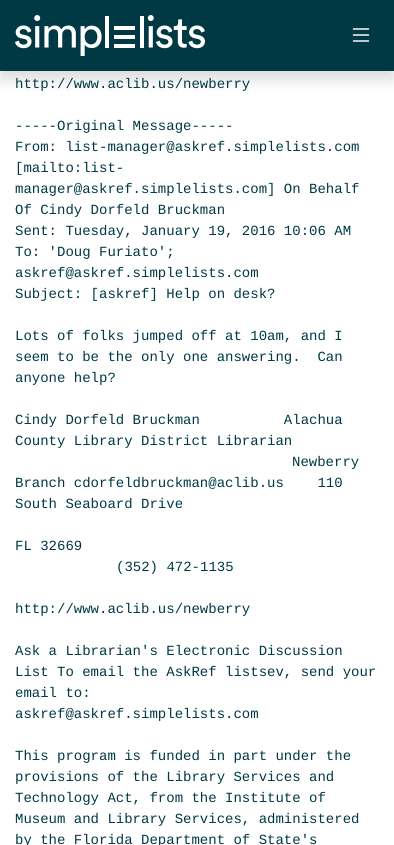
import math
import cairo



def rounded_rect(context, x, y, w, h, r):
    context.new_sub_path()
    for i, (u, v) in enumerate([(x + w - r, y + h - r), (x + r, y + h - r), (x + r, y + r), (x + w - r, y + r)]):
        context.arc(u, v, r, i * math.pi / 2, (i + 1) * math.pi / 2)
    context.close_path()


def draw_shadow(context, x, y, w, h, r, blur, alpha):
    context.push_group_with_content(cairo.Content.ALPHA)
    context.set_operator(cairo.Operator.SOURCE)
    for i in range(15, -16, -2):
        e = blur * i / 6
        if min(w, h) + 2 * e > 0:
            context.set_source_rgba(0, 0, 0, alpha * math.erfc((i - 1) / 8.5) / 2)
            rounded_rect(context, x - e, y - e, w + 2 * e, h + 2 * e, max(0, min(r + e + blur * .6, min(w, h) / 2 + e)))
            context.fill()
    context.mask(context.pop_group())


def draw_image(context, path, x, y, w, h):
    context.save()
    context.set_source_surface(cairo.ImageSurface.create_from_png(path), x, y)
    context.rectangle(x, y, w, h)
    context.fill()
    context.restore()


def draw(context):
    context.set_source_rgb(1, 1, 1)
    context.paint()
    context.set_source_rgb(0, 0, 0)
    draw_shadow(context, 0, 8, 394, 71, 0, 7.5, 0.15)
    context.set_source_rgb(0, 57 / 255, 68 / 255)
    context.rectangle(0, 0, 394, 71)
    context.fill()
    draw_image(context, "images/1.png", 15, 15, 190, 41)
    draw_image(context, "images/2.png", 352, 28, 18, 14)
    context.select_font_face("Liberation Mono")
    context.set_font_size(14)
    context.move_to(15, 88)
    context.show_text("http://www.aclib.us/newberry")
    context.move_to(15, 130)
    context.show_text("-----Original Message-----")
    context.move_to(15, 151)
    context.show_text("From: list-manager@askref.simplelists.com")
    context.move_to(15, 172)
    context.show_text("[mailto:list-")
    context.move_to(15, 193)
    context.show_text("manager@askref.simplelists.com] On Behalf")
    context.move_to(15, 214)
    context.show_text("Of Cindy Dorfeld Bruckman")
    context.move_to(15, 235)
    context.show_text("Sent: Tuesday, January 19, 2016 10:06 AM")
    context.move_to(15, 256)
    context.show_text("To: 'Doug Furiato';")
    context.move_to(15, 277)
    context.show_text("askref@askref.simplelists.com")
    context.move_to(15, 298)
    context.show_text("Subject: [askref] Help on desk?")
    context.move_to(15, 340)
    context.show_text("Lots of folks jumped off at 10am, and I")
    context.move_to(15, 361)
    context.show_text("seem to be the only one answering.  Can")
    context.move_to(15, 382)
    context.show_text("anyone help?")
    context.move_to(15, 424)
    context.show_text("Cindy Dorfeld Bruckman          Alachua")
    context.move_to(15, 445)
    context.show_text("County Library District Librarian")
    context.move_to(292, 466)
    context.show_text("Newberry")
    context.move_to(15, 487)
    context.show_text("Branch cdorfeldbruckman@aclib.us    110")
    context.move_to(15, 508)
    context.show_text("South Seaboard Drive")
    context.move_to(15, 550)
    context.show_text("FL 32669")
    context.move_to(116, 571)
    context.show_text("(352) 472-1135")
    context.move_to(15, 613)
    context.show_text("http://www.aclib.us/newberry")
    context.move_to(15, 655)
    context.show_text("Ask a Librarian's Electronic Discussion")
    context.move_to(15, 676)
    context.show_text("List To email the AskRef listsev, send your")
    context.move_to(15, 697)
    context.show_text("email to:")
    context.move_to(15, 718)
    context.show_text("askref@askref.simplelists.com")
    context.move_to(15, 760)
    context.show_text("This program is funded in part under the")
    context.move_to(15, 781)
    context.show_text("provisions of the Library Services and")
    context.move_to(15, 802)
    context.show_text("Technology Act, from the Institute of")
    context.move_to(15, 823)
    context.show_text("Museum and Library Services, administered")
    context.move_to(15, 844)
    context.show_text("by the Florida Department of State's")


surface = cairo.ImageSurface(cairo.Format.RGB24, 394, 845)
context = cairo.Context(surface)
options = cairo.FontOptions()
options.set_hint_metrics(cairo.HintMetrics.OFF)
options.set_hint_style(cairo.HintStyle.NONE)
context.set_font_options(options)
context.set_miter_limit(4)
draw(context)
surface.write_to_png("out.png")
